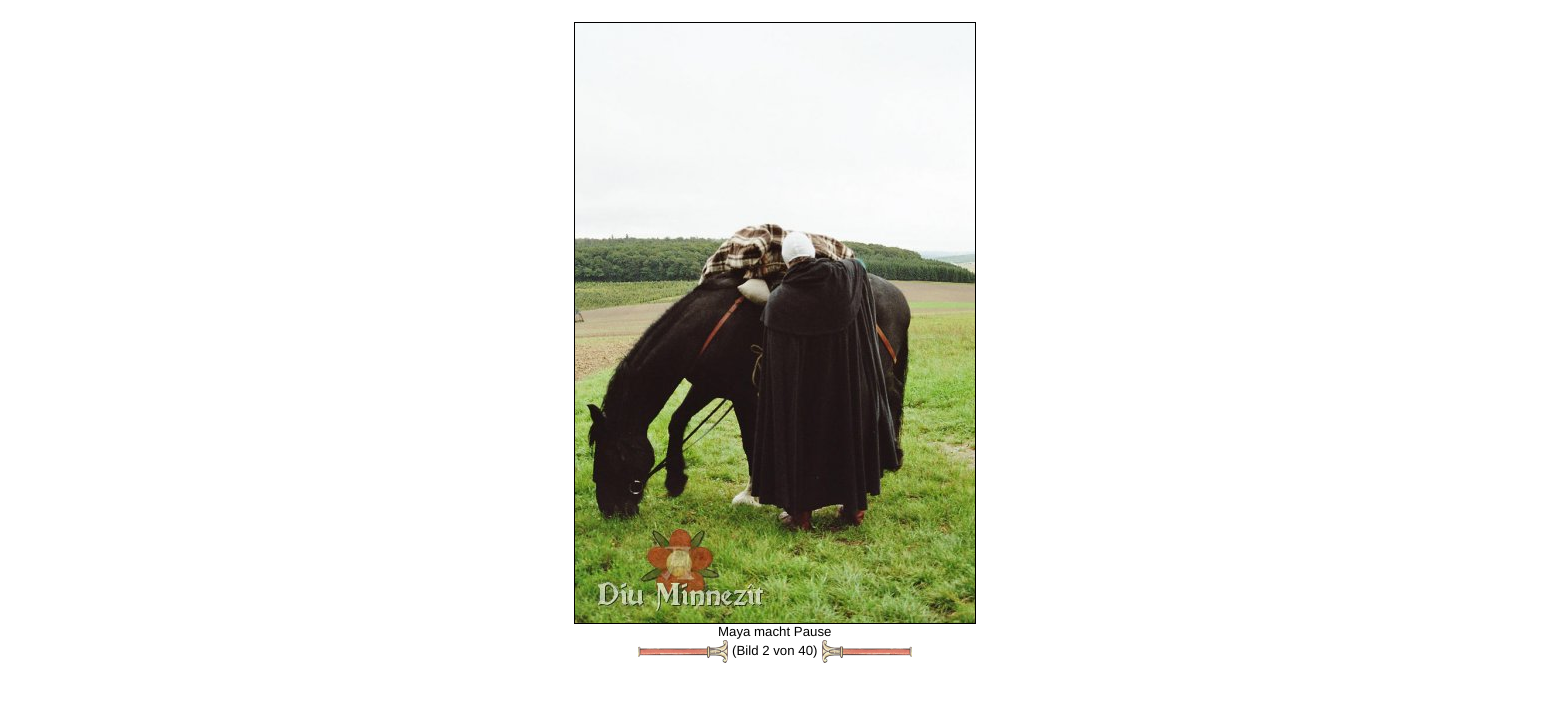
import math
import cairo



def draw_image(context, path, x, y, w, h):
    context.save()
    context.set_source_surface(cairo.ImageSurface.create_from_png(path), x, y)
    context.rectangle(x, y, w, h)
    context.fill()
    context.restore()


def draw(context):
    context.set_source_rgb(1, 1, 1)
    context.paint()
    context.rectangle(574.5, 22.5, 401, 601)
    context.set_source_rgb(0, 0, 0)
    context.set_line_width(1)
    context.stroke()
    draw_image(context, "images/1.png", 575, 23, 400, 600)
    draw_image(context, "images/2.png", 638, 640, 90, 23)
    draw_image(context, "images/3.png", 822, 640, 90, 23)
    context.select_font_face("Liberation Sans")
    context.set_font_size(13.25)
    context.move_to(718, 636)
    context.show_text("Maya macht Pause")
    context.move_to(732, 655)
    context.show_text("(Bild 2 von 40)")


surface = cairo.ImageSurface(cairo.Format.RGB24, 1551, 716)
context = cairo.Context(surface)
options = cairo.FontOptions()
options.set_hint_metrics(cairo.HintMetrics.OFF)
options.set_hint_style(cairo.HintStyle.NONE)
context.set_font_options(options)
context.set_miter_limit(4)
draw(context)
surface.write_to_png("out.png")
